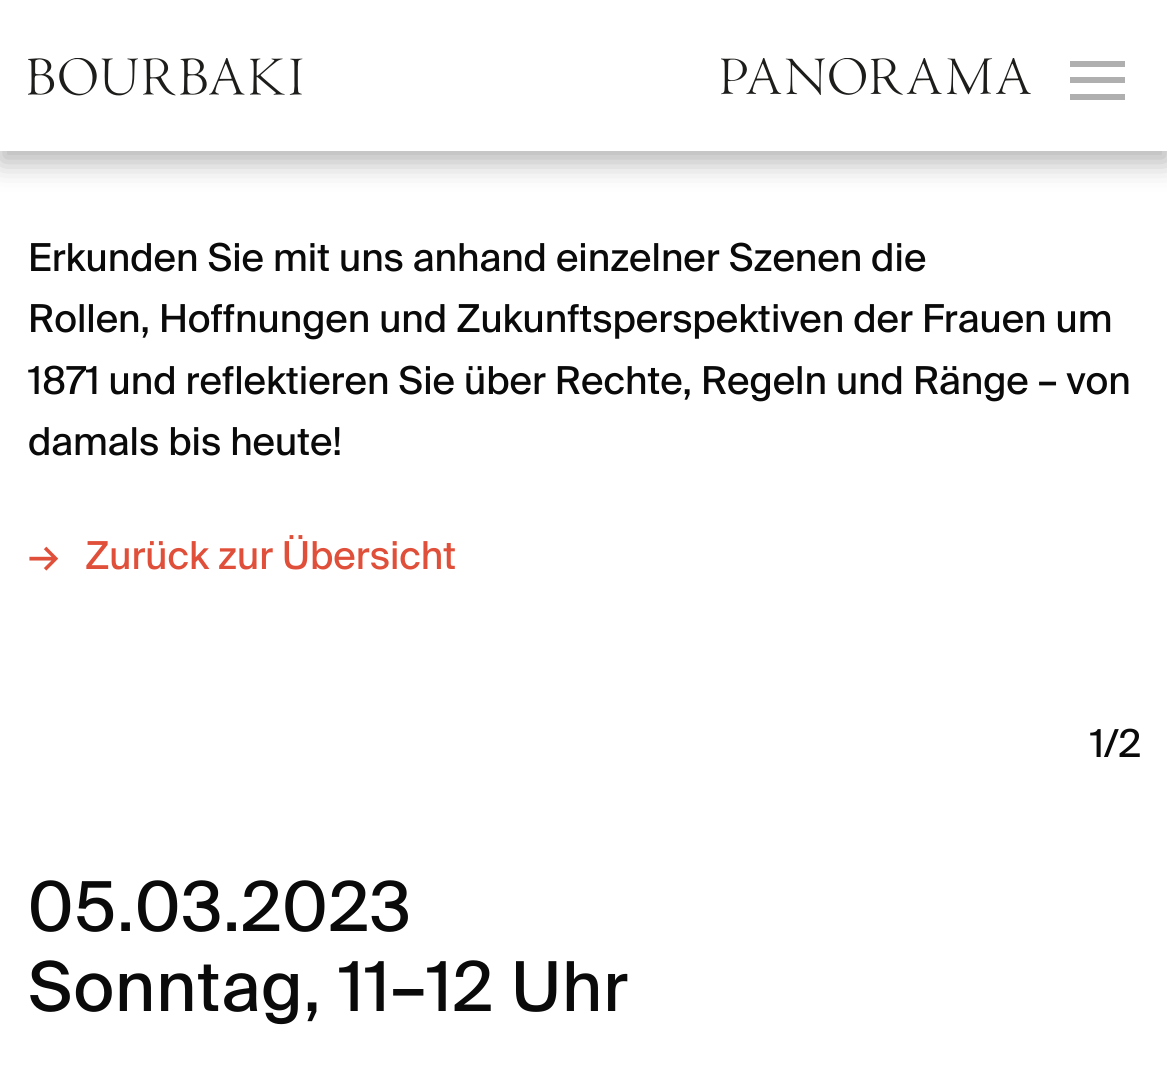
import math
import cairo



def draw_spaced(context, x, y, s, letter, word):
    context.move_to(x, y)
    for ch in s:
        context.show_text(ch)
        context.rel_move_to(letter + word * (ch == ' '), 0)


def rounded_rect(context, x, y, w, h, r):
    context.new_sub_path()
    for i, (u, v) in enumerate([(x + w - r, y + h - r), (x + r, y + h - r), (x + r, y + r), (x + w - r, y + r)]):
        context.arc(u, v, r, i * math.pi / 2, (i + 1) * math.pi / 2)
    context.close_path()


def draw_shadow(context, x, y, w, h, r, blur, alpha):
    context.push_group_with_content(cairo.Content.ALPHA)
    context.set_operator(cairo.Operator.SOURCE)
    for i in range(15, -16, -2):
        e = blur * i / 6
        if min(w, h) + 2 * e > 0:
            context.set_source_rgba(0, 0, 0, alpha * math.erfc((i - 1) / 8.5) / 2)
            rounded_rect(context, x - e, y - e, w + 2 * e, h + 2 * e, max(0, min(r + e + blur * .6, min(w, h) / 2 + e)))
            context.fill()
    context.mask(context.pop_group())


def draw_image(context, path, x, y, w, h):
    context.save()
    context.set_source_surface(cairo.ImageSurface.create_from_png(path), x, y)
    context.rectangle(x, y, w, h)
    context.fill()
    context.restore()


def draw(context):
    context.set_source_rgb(1, 1, 1)
    context.paint()
    context.set_source_rgb(0, 0, 0)
    draw_shadow(context, 0, 11, 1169, 151, 0, 14, 0.3)
    context.set_source_rgb(1, 1, 1)
    context.rectangle(0, 0, 1167, 151)
    context.fill()
    draw_image(context, "images/1.png", 28, 58, 275, 38)
    draw_image(context, "images/2.png", 721, 58, 310, 37)
    context.set_source_rgb(175 / 255, 175 / 255, 175 / 255)
    context.rectangle(1070, 61, 55, 6)
    context.fill()
    context.rectangle(1070, 77, 55, 6)
    context.fill()
    context.rectangle(1070, 94, 55, 6)
    context.fill()
    context.select_font_face("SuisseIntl")
    context.set_font_size(38.5)
    context.set_source_rgb(10 / 255, 10 / 255, 10 / 255)
    context.move_to(28, 271)
    context.show_text("Erkunden Sie mit uns anhand einzelner Szenen die")
    context.move_to(28, 332)
    context.show_text("Rollen, Hoffnungen und Zukunftsperspektiven der Frauen um")
    context.move_to(28, 394)
    context.show_text("1871 und reflektieren Sie über Rechte, Regeln und Ränge – von")
    context.move_to(28, 455)
    context.show_text("damals bis heute!")
    context.set_source_rgb(224 / 255, 79 / 255, 57 / 255)
    context.move_to(28, 569)
    context.show_text("→")
    context.move_to(85, 569)
    context.show_text("Zurück zur Übersicht")
    context.set_source_rgb(10 / 255, 10 / 255, 10 / 255)
    context.move_to(1090, 757)
    context.show_text("1/2")
    context.set_font_size(68.75)
    draw_spaced(context, 28, 931, "05.03.2023", 1.1, 0)
    draw_spaced(context, 28, 1011, "Sonntag, 11–12 Uhr", 1.1, 0)


surface = cairo.ImageSurface(cairo.Format.RGB24, 1167, 1072)
context = cairo.Context(surface)
options = cairo.FontOptions()
options.set_hint_metrics(cairo.HintMetrics.OFF)
options.set_hint_style(cairo.HintStyle.NONE)
context.set_font_options(options)
context.set_miter_limit(4)
draw(context)
surface.write_to_png("out.png")
